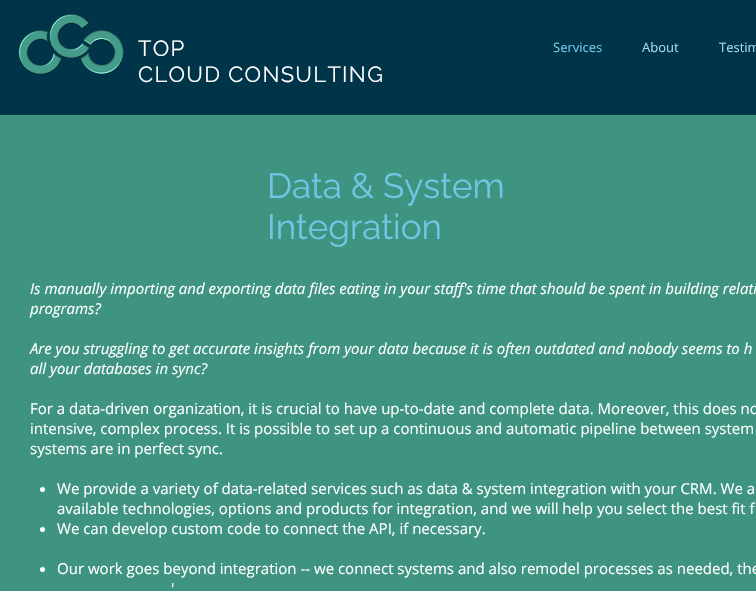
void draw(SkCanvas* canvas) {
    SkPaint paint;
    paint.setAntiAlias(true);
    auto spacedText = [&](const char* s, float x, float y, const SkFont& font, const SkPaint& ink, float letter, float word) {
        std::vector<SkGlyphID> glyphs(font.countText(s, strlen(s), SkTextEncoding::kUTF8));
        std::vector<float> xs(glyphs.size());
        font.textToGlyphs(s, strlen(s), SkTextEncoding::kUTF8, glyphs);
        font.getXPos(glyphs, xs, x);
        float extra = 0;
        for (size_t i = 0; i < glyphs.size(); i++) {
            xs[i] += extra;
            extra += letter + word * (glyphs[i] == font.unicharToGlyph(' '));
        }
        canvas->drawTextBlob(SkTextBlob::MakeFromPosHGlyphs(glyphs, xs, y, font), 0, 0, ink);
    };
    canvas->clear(0xFF3E9481);
    paint.setColor(0xFF003448);
    canvas->drawRect(SkRect::MakeXYWH(0, 0, 756, 115), paint);
    canvas->drawImageRect(SkImages::DeferredFromEncodedData(SkData::MakeFromFileName("img1.png")), SkRect::MakeXYWH(18, 14, 106, 61), SkSamplingOptions());
    SkFont font1(fontMgr->matchFamilyStyle("Raleway", SkFontStyle::Normal()), 22);
    font1.setSubpixel(true);
    paint.setColor(0xFFFFFFFF);
    spacedText("TOP", 138, 56, font1, paint, 1.3f, 0);
    spacedText("CLOUD CONSULTING", 138, 82, font1, paint, 1.3f, 0);
    SkFont font2(fontMgr->matchFamilyStyle("Open Sans", SkFontStyle::Normal()), 13);
    font2.setSubpixel(true);
    paint.setColor(0xFF72C6E5);
    canvas->drawString("Services", 553, 52, font2, paint);
    paint.setColor(0xFFA1DCF2);
    canvas->drawString("About", 642, 52, font2, paint);
    canvas->drawString("Testim", 719, 52, font2, paint);
    SkFont font3(fontMgr->matchFamilyStyle("Raleway", SkFontStyle::Normal()), 35);
    font3.setSubpixel(true);
    paint.setColor(0xFF72C6E5);
    canvas->drawString("Data & System", 267, 198, font3, paint);
    canvas->drawString("Integration", 267, 239, font3, paint);
    SkFont font4(fontMgr->matchFamilyStyle("Open Sans", SkFontStyle::Italic()), 15);
    font4.setSubpixel(true);
    paint.setColor(0xFFFFFFFF);
    canvas->drawString("Is manually importing and exporting data files eating in your staff's time that should be spent in building relati", 30, 294, font4, paint);
    canvas->drawString("programs?", 30, 314, font4, paint);
    canvas->drawString("Are you struggling to get accurate insights from your data because it is often outdated and nobody seems to h", 30, 354, font4, paint);
    canvas->drawString("all your databases in sync?", 30, 374, font4, paint);
    SkFont font5(fontMgr->matchFamilyStyle("Open Sans", SkFontStyle::Normal()), 15);
    font5.setSubpixel(true);
    canvas->drawString("For a data-driven organization, it is crucial to have up-to-date and complete data. Moreover, this does no", 30, 414, font5, paint);
    canvas->drawString("intensive, complex process. It is possible to set up a continuous and automatic pipeline between system", 30, 434, font5, paint);
    canvas->drawString("systems are in perfect sync.", 30, 454, font5, paint);
    canvas->drawCircle(42.5f, 489.5f, 2.5f, paint);
    canvas->drawString("We provide a variety of data-related services such as data & system integration with your CRM. We a", 57, 494, font5, paint);
    canvas->drawString("available technologies, options and products for integration, and we will help you select the best fit f", 57, 514, font5, paint);
    canvas->drawCircle(42.5f, 529.5f, 2.5f, paint);
    canvas->drawString("We can develop custom code to connect the API, if necessary.", 57, 534, font5, paint);
    canvas->drawCircle(42.5f, 569.5f, 2.5f, paint);
    canvas->drawString("Our work goes beyond integration -- we connect systems and also remodel processes as needed, the", 57, 574, font5, paint);
    canvas->drawString("'", 171, 594, font5, paint);
}
